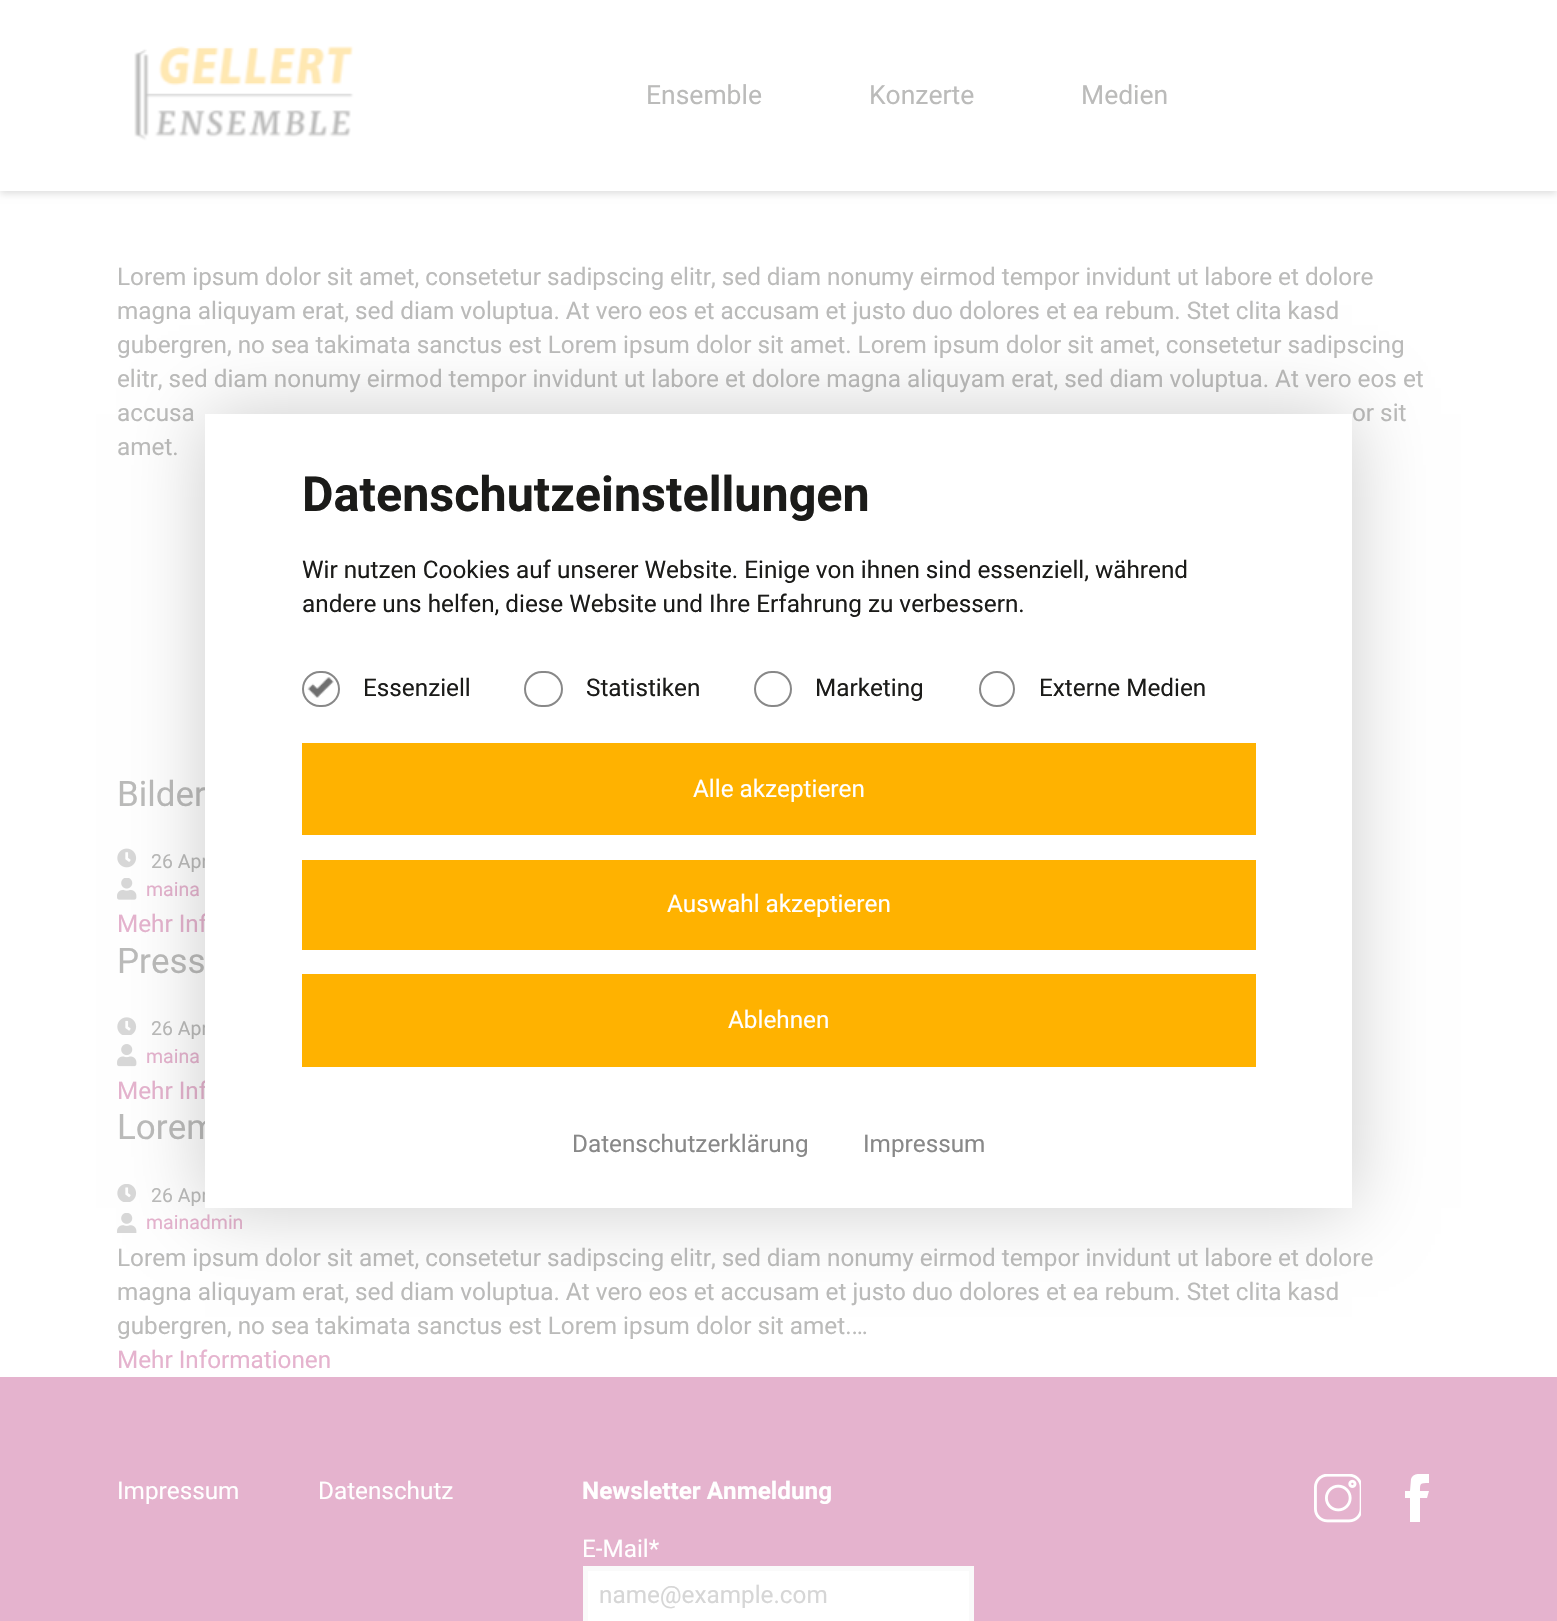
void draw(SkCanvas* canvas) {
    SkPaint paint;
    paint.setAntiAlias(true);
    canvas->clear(0xFFFFFFFF);
    paint.setColor(0xFFE0E0E0);
    paint.setMaskFilter(SkMaskFilter::MakeBlur(kNormal_SkBlurStyle, 3.5f));
    canvas->drawRect(SkRect::MakeXYWH(0, 2, 1557, 192), paint);
    paint.setMaskFilter(nullptr);
    paint.setColor(0xFFFFFFFF);
    canvas->drawRect(SkRect::MakeXYWH(0, 0, 1557, 191), paint);
    canvas->drawImageRect(SkImages::DeferredFromEncodedData(SkData::MakeFromFileName("img1.png")), SkRect::MakeXYWH(134, 46, 220, 95), SkSamplingOptions());
    SkFont font1(fontMgr->matchFamilyStyle("Roboto", SkFontStyle::Normal()), 26.5f);
    font1.setSubpixel(true);
    paint.setColor(0xFFBBBBBA);
    canvas->drawString("Ensemble", 646, 104, font1, paint);
    canvas->drawString("Konzerte", 869, 104, font1, paint);
    canvas->drawString("Medien", 1081, 104, font1, paint);
    SkFont font2(fontMgr->matchFamilyStyle("Roboto", SkFontStyle::Normal()), 24.3f);
    font2.setSubpixel(true);
    canvas->drawString("Lorem ipsum dolor sit amet, consetetur sadipscing elitr, sed diam nonumy eirmod tempor invidunt ut labore et dolore", 117, 285, font2, paint);
    canvas->drawString("magna aliquyam erat, sed diam voluptua. At vero eos et accusam et justo duo dolores et ea rebum. Stet clita kasd", 117, 319, font2, paint);
    canvas->drawString("gubergren, no sea takimata sanctus est Lorem ipsum dolor sit amet. Lorem ipsum dolor sit amet, consetetur sadipscing", 117, 353, font2, paint);
    canvas->drawString("elitr, sed diam nonumy eirmod tempor invidunt ut labore et dolore magna aliquyam erat, sed diam voluptua. At vero eos et", 117, 387, font2, paint);
    canvas->drawString("accusa", 117, 421, font2, paint);
    canvas->drawString("or sit", 1352, 421, font2, paint);
    canvas->drawString("amet.", 117, 455, font2, paint);
    SkFont font3(fontMgr->matchFamilyStyle("Roboto", SkFontStyle::Normal()), 35);
    font3.setSubpixel(true);
    canvas->drawString("Bilder", 117, 806, font3, paint);
    canvas->drawImageRect(SkImages::DeferredFromEncodedData(SkData::MakeFromFileName("img2.png")), SkRect::MakeXYWH(117, 848, 20, 20), SkSamplingOptions());
    SkFont font4(fontMgr->matchFamilyStyle("Roboto", SkFontStyle::Normal()), 19.5f);
    font4.setSubpixel(true);
    canvas->drawString("26 Apr", 151, 868, font4, paint);
    canvas->drawImageRect(SkImages::DeferredFromEncodedData(SkData::MakeFromFileName("img3.png")), SkRect::MakeXYWH(117, 878, 20, 22), SkSamplingOptions());
    paint.setColor(0xFFE5B3CE);
    canvas->drawString("maina", 146, 896, font4, paint);
    canvas->drawString("Mehr Inf", 117, 932, font2, paint);
    paint.setColor(0xFFBBBBBA);
    canvas->drawString("Press", 117, 973, font3, paint);
    canvas->drawImageRect(SkImages::DeferredFromEncodedData(SkData::MakeFromFileName("img4.png")), SkRect::MakeXYWH(117, 1017, 20, 18), SkSamplingOptions());
    canvas->drawString("26 Apr", 151, 1035, font4, paint);
    canvas->drawImageRect(SkImages::DeferredFromEncodedData(SkData::MakeFromFileName("img5.png")), SkRect::MakeXYWH(117, 1044, 20, 23), SkSamplingOptions());
    paint.setColor(0xFFE5B3CE);
    canvas->drawString("maina", 146, 1063, font4, paint);
    canvas->drawString("Mehr Inf", 117, 1099, font2, paint);
    paint.setColor(0xFFBBBBBA);
    canvas->drawString("Lorem", 117, 1139, font3, paint);
    canvas->drawImageRect(SkImages::DeferredFromEncodedData(SkData::MakeFromFileName("img6.png")), SkRect::MakeXYWH(117, 1184, 20, 18), SkSamplingOptions());
    canvas->drawString("26 Apr", 151, 1202, font4, paint);
    canvas->drawImageRect(SkImages::DeferredFromEncodedData(SkData::MakeFromFileName("img7.png")), SkRect::MakeXYWH(117, 1213, 20, 20), SkSamplingOptions());
    paint.setColor(0xFFE5B3CE);
    canvas->drawString("mainadmin", 146, 1229, font4, paint);
    paint.setColor(0xFFBBBBBA);
    canvas->drawString("Lorem ipsum dolor sit amet, consetetur sadipscing elitr, sed diam nonumy eirmod tempor invidunt ut labore et dolore", 117, 1266, font2, paint);
    canvas->drawString("magna aliquyam erat, sed diam voluptua. At vero eos et accusam et justo duo dolores et ea rebum. Stet clita kasd", 117, 1300, font2, paint);
    canvas->drawString("gubergren, no sea takimata sanctus est Lorem ipsum dolor sit amet.…", 117, 1334, font2, paint);
    paint.setColor(0xFFE5B3CE);
    canvas->drawString("Mehr Informationen", 117, 1368, font2, paint);
    canvas->drawRect(SkRect::MakeXYWH(0, 1377, 1557, 244), paint);
    paint.setColor(0xFFFFFFFF);
    canvas->drawString("Impressum", 117, 1499, font2, paint);
    canvas->drawString("Datenschutz", 318, 1499, font2, paint);
    SkFont font5(fontMgr->matchFamilyStyle("Roboto", SkFontStyle::Bold()), 24.3f);
    font5.setSubpixel(true);
    canvas->drawString("Newsletter Anmeldung", 582, 1499, font5, paint);
    canvas->drawString("E-Mail*", 582, 1557, font2, paint);
    canvas->drawRect(SkRect::MakeXYWH(585.5f, 1568.5f, 386, 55), paint);
    paint.setStyle(SkPaint::kStroke_Style);
    paint.setStrokeWidth(5);
    paint.setColor(0xFFFAFAFA);
    canvas->drawRect(SkRect::MakeXYWH(585.5f, 1568.5f, 386, 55), paint);
    paint.setStyle(SkPaint::kFill_Style);
    paint.setColor(0xFFD6D6D6);
    canvas->drawString("name@example.com", 599, 1603, font2, paint);
    canvas->drawImageRect(SkImages::DeferredFromEncodedData(SkData::MakeFromFileName("img8.png")), SkRect::MakeXYWH(1314, 1474, 47, 49), SkSamplingOptions());
    canvas->save();
    canvas->clipRect(SkRect::MakeXYWH(1393, 1474, 47, 49));
    paint.setColor(0xFFFFFFFF);
    canvas->drawPath(SkPathBuilder().moveTo(1429, 1491).lineTo(1420, 1491).cubicTo(1420, 1483, 1420, 1483, 1429, 1483).lineTo(1429, 1474).cubicTo(1423, 1474, 1413, 1472, 1411, 1479).lineTo(1410, 1491).lineTo(1405, 1491).lineTo(1405, 1498).lineTo(1410, 1498).lineTo(1410, 1522).lineTo(1420, 1522).lineTo(1420, 1498).lineTo(1427, 1498).close().detach(), paint);
    canvas->restore();
    paint.setColor(0x33000000);
    paint.setMaskFilter(SkMaskFilter::MakeBlur(kNormal_SkBlurStyle, 36.5f));
    canvas->drawRect(SkRect::MakeXYWH(205, 414, 1147, 794), paint);
    paint.setMaskFilter(nullptr);
    paint.setColor(0xFFFFFFFF);
    canvas->drawRect(SkRect::MakeXYWH(205, 414, 1147, 794), paint);
    SkFont font6(fontMgr->matchFamilyStyle("Roboto", SkFontStyle::Bold()), 48.5f);
    font6.setSubpixel(true);
    paint.setColor(0xFF1B1B19);
    canvas->drawString("Datenschutzeinstellungen", 302, 511, font6, paint);
    canvas->drawString("Wir nutzen Cookies auf unserer Website. Einige von ihnen sind essenziell, während", 302, 578, font2, paint);
    canvas->drawString("andere uns helfen, diese Website und Ihre Erfahrung zu verbessern.", 302, 612, font2, paint);
    paint.setStyle(SkPaint::kStroke_Style);
    paint.setStrokeWidth(2);
    paint.setColor(0xFF888888);
    canvas->drawRoundRect(SkRect::MakeXYWH(303, 672, 36, 34), 17, 17, paint);
    canvas->drawImageRect(SkImages::DeferredFromEncodedData(SkData::MakeFromFileName("img9.png")), SkRect::MakeXYWH(307, 677, 27, 21), SkSamplingOptions());
    paint.setStyle(SkPaint::kFill_Style);
    paint.setColor(0xFF1B1B19);
    canvas->drawString("Essenziell", 363, 696, font2, paint);
    paint.setStyle(SkPaint::kStroke_Style);
    paint.setColor(0xFF888888);
    canvas->drawRoundRect(SkRect::MakeXYWH(525, 672, 37, 34), 17, 17, paint);
    paint.setStyle(SkPaint::kFill_Style);
    paint.setColor(0xFF1B1B19);
    canvas->drawString("Statistiken", 586, 696, font2, paint);
    paint.setStyle(SkPaint::kStroke_Style);
    paint.setColor(0xFF888888);
    canvas->drawRoundRect(SkRect::MakeXYWH(755, 672, 36, 34), 17, 17, paint);
    paint.setStyle(SkPaint::kFill_Style);
    paint.setColor(0xFF1B1B19);
    canvas->drawString("Marketing", 815, 696, font2, paint);
    paint.setStyle(SkPaint::kStroke_Style);
    paint.setColor(0xFF888888);
    canvas->drawCircle(997, 689, 17, paint);
    paint.setStyle(SkPaint::kFill_Style);
    paint.setColor(0xFF1B1B19);
    canvas->drawString("Externe Medien", 1039, 696, font2, paint);
    paint.setColor(0xFFFFB200);
    canvas->drawRect(SkRect::MakeXYWH(302, 743, 954, 92), paint);
    paint.setColor(0xFFFFFFFF);
    canvas->drawString("Alle akzeptieren", 693, 797, font2, paint);
    paint.setColor(0xFFFFB200);
    canvas->drawRect(SkRect::MakeXYWH(302, 860, 954, 90), paint);
    paint.setColor(0xFFFFFFFF);
    canvas->drawString("Auswahl akzeptieren", 667, 912, font2, paint);
    paint.setColor(0xFFFFB200);
    canvas->drawRect(SkRect::MakeXYWH(302, 974, 954, 93), paint);
    paint.setColor(0xFFFFFFFF);
    canvas->drawString("Ablehnen", 728, 1028, font2, paint);
    paint.setColor(0xFF888888);
    canvas->drawString("Datenschutzerklärung", 572, 1152, font2, paint);
    canvas->drawString("Impressum", 863, 1152, font2, paint);
}
